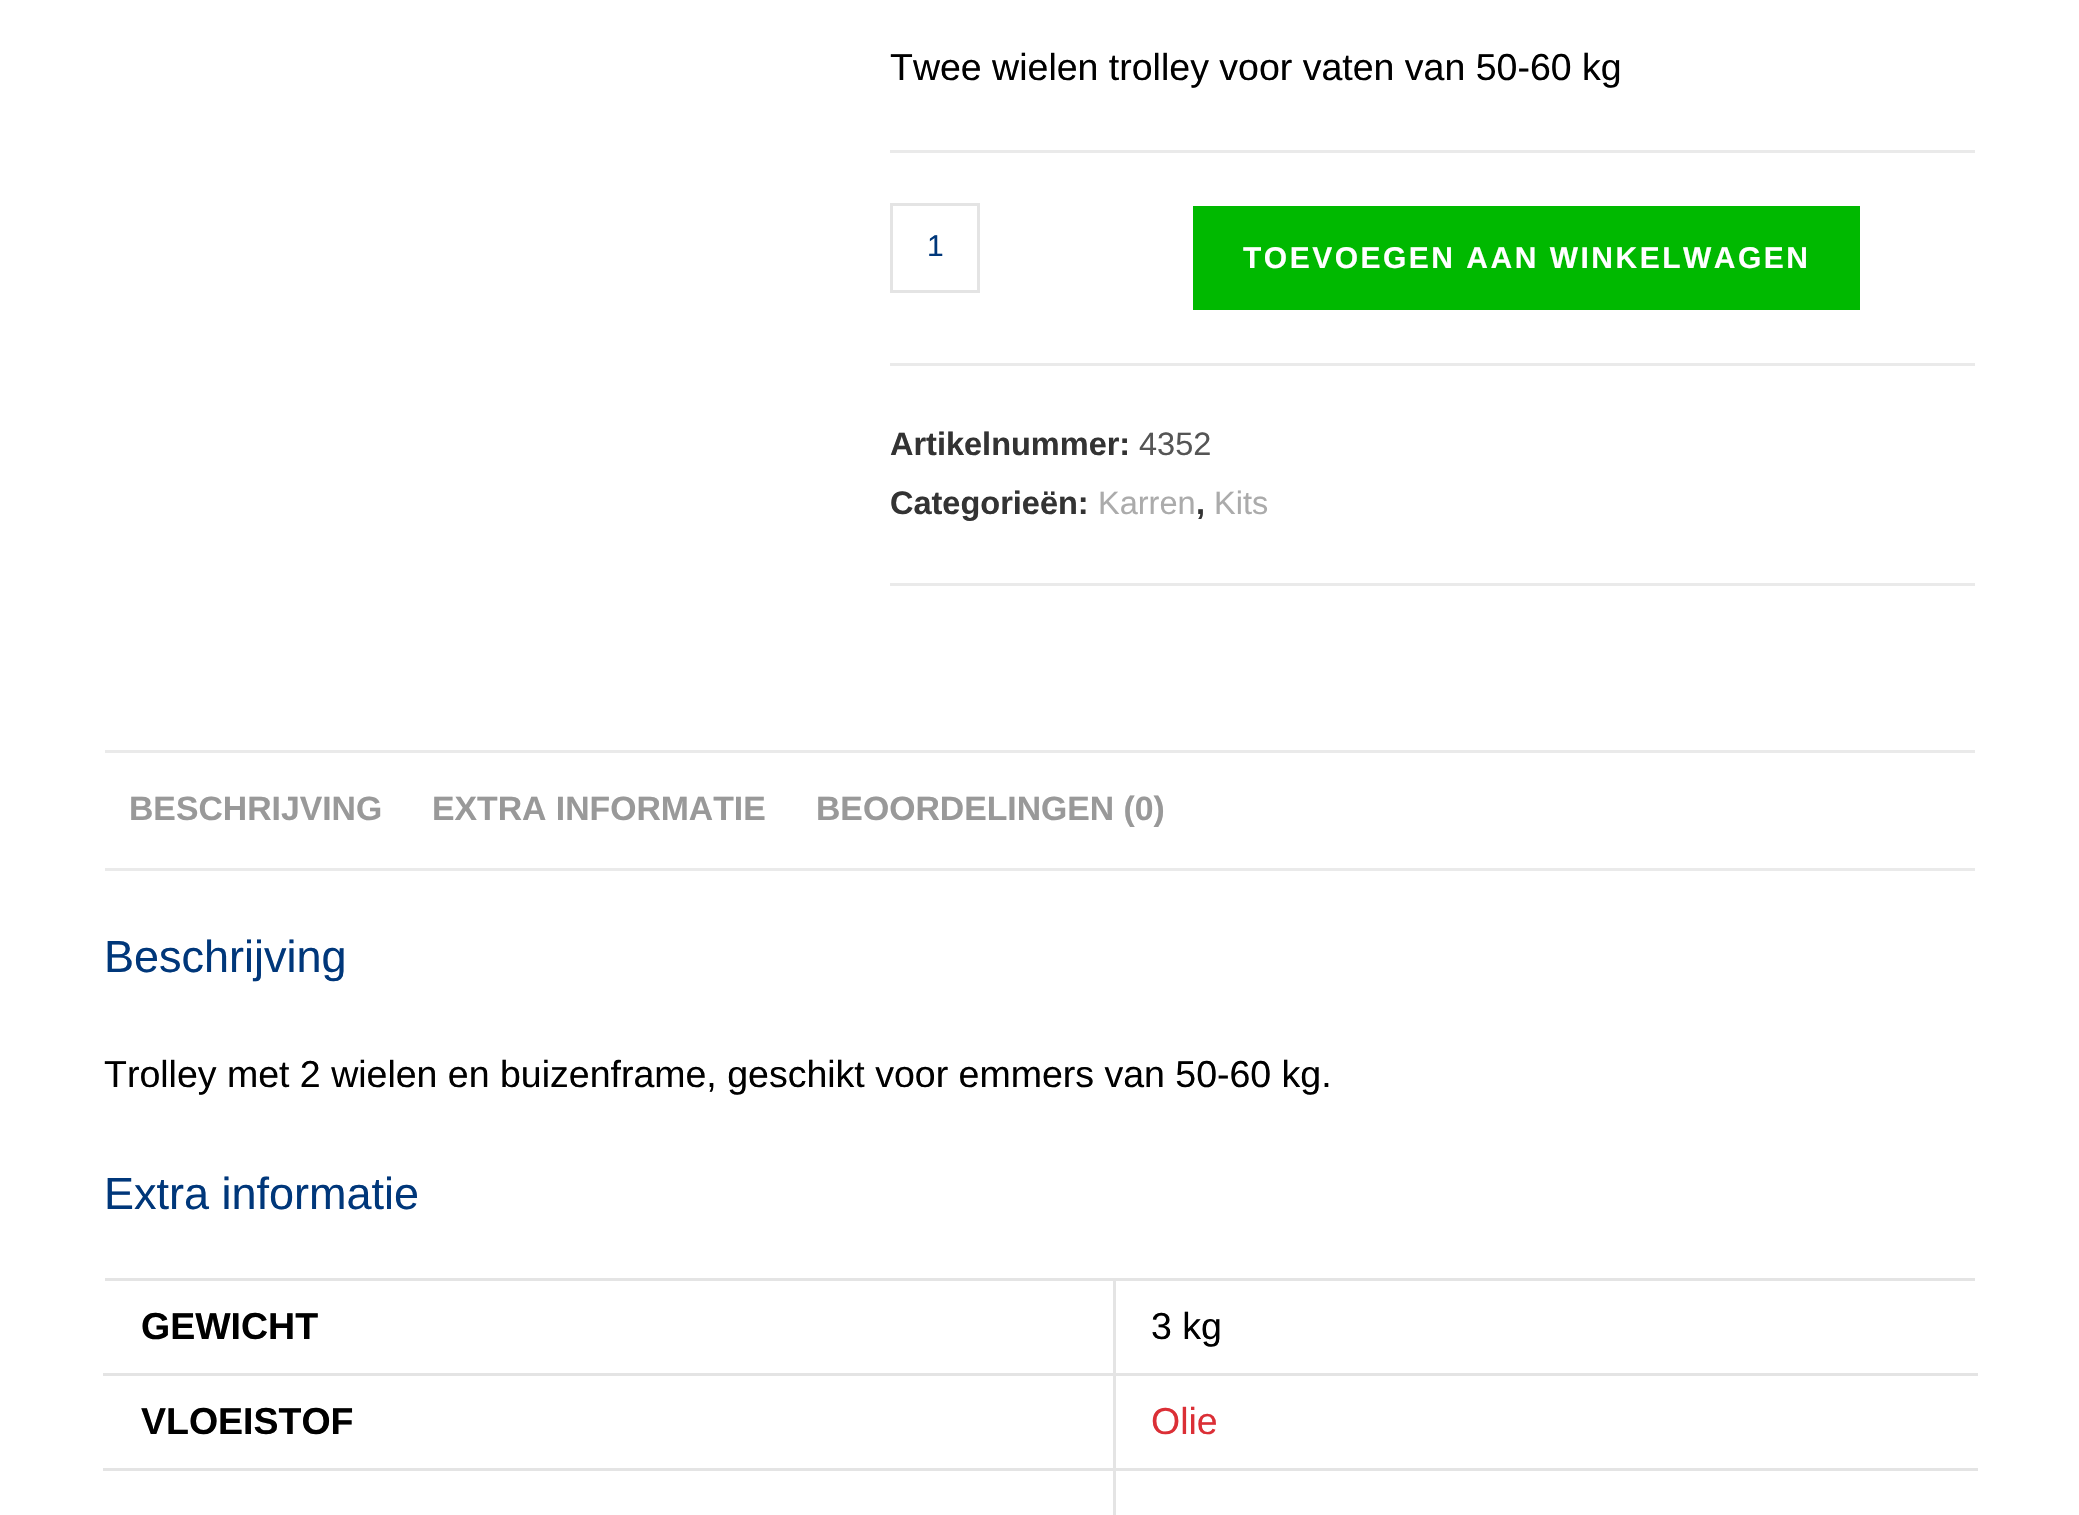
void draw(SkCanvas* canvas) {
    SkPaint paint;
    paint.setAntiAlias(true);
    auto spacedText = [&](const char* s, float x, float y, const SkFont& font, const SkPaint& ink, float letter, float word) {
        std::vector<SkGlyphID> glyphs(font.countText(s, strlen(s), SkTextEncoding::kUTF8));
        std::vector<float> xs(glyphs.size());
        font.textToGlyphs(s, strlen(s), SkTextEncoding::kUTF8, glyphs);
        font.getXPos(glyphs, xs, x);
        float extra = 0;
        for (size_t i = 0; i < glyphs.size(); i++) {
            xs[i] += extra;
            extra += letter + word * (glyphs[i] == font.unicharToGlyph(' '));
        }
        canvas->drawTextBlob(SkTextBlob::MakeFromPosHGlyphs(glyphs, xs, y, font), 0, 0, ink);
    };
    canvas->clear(0xFFFFFFFF);
    SkFont font1(fontMgr->matchFamilyStyle("Liberation Sans", SkFontStyle::Normal()), 37.5f);
    font1.setSubpixel(true);
    paint.setColor(0xFF000000);
    canvas->drawString("Twee wielen trolley voor vaten van 50-60 kg", 890, 80, font1, paint);
    paint.setColor(0xFFEAEAEA);
    canvas->drawRect(SkRect::MakeXYWH(890, 150, 1085, 3), paint);
    canvas->drawRect(SkRect::MakeXYWH(890, 363, 1085, 3), paint);
    paint.setStyle(SkPaint::kStroke_Style);
    paint.setStrokeWidth(3);
    paint.setColor(0xFFE4E4E4);
    canvas->drawRect(SkRect::MakeXYWH(891.5f, 204.5f, 87, 87), paint);
    SkFont font2(fontMgr->matchFamilyStyle("Liberation Sans", SkFontStyle::Normal()), 30);
    font2.setSubpixel(true);
    paint.setStyle(SkPaint::kFill_Style);
    paint.setColor(0xFF00377A);
    canvas->drawString("1", 927, 256, font2, paint);
    paint.setColor(0xFF00B900);
    canvas->drawRect(SkRect::MakeXYWH(1193, 206, 667, 104), paint);
    SkFont font3(fontMgr->matchFamilyStyle("Liberation Sans", SkFontStyle::Bold()), 30);
    font3.setSubpixel(true);
    paint.setColor(0xFFFFFFFF);
    spacedText("TOEVOEGEN AAN WINKELWAGEN", 1243, 268, font3, paint, 2.5f, 0);
    paint.setColor(0xFFEAEAEA);
    canvas->drawRect(SkRect::MakeXYWH(890, 583, 1085, 3), paint);
    SkFont font4(fontMgr->matchFamilyStyle("Liberation Sans", SkFontStyle::Bold()), 32.5f);
    font4.setSubpixel(true);
    paint.setColor(0xFF333333);
    canvas->drawString("Artikelnummer:", 890, 455, font4, paint);
    SkFont font5(fontMgr->matchFamilyStyle("Liberation Sans", SkFontStyle::Normal()), 32.5f);
    font5.setSubpixel(true);
    paint.setColor(0xFF555555);
    canvas->drawString("4352", 1139, 455, font5, paint);
    paint.setColor(0xFF333333);
    canvas->drawString("Categorieën:", 890, 514, font4, paint);
    paint.setColor(0xFFABABAB);
    canvas->drawString("Karren", 1098, 514, font5, paint);
    paint.setColor(0xFF333333);
    canvas->drawString(",", 1196, 514, font4, paint);
    paint.setColor(0xFFABABAB);
    canvas->drawString("Kits", 1214, 514, font5, paint);
    paint.setColor(0xFFEAEAEA);
    canvas->drawRect(SkRect::MakeXYWH(105, 750, 1870, 3), paint);
    canvas->drawRect(SkRect::MakeXYWH(105, 868, 1870, 3), paint);
    SkFont font6(fontMgr->matchFamilyStyle("Liberation Sans", SkFontStyle::Bold()), 33.75f);
    font6.setSubpixel(true);
    paint.setColor(0xFF999999);
    canvas->drawString("BESCHRIJVING", 129, 820, font6, paint);
    canvas->drawString("EXTRA INFORMATIE", 432, 820, font6, paint);
    canvas->drawString("BEOORDELINGEN (0)", 816, 820, font6, paint);
    SkFont font7(fontMgr->matchFamilyStyle("Liberation Sans", SkFontStyle::Normal()), 45);
    font7.setSubpixel(true);
    paint.setColor(0xFF00377A);
    canvas->drawString("Beschrijving", 104, 972, font7, paint);
    paint.setColor(0xFF000000);
    canvas->drawString("Trolley met 2 wielen en buizenframe, geschikt voor emmers van 50-60 kg.", 104, 1087, font1, paint);
    paint.setColor(0xFF00377A);
    canvas->drawString("Extra informatie", 104, 1209, font7, paint);
    paint.setColor(0xFFE4E4E4);
    canvas->drawRect(SkRect::MakeXYWH(105, 1278, 1870, 3), paint);
    canvas->drawRect(SkRect::MakeXYWH(1113, 1468, 3, 47), paint);
    canvas->drawRect(SkRect::MakeXYWH(1113, 1468, 865, 3), paint);
    canvas->drawRect(SkRect::MakeXYWH(1113, 1373, 3, 97), paint);
    canvas->drawRect(SkRect::MakeXYWH(1113, 1373, 865, 3), paint);
    canvas->drawRect(SkRect::MakeXYWH(1113, 1278, 3, 97), paint);
    canvas->drawRect(SkRect::MakeXYWH(103, 1373, 1012, 3), paint);
    SkFont font8(fontMgr->matchFamilyStyle("Liberation Sans", SkFontStyle::Bold()), 37.5f);
    font8.setSubpixel(true);
    paint.setColor(0xFF000000);
    canvas->drawString("GEWICHT", 141, 1339, font8, paint);
    canvas->drawString("3 kg", 1151, 1339, font1, paint);
    paint.setColor(0xFFE4E4E4);
    canvas->drawRect(SkRect::MakeXYWH(103, 1468, 1012, 3), paint);
    paint.setColor(0xFF000000);
    canvas->drawString("VLOEISTOF", 141, 1434, font8, paint);
    paint.setColor(0xFFDB2F36);
    canvas->drawString("Olie", 1151, 1434, font1, paint);
}
